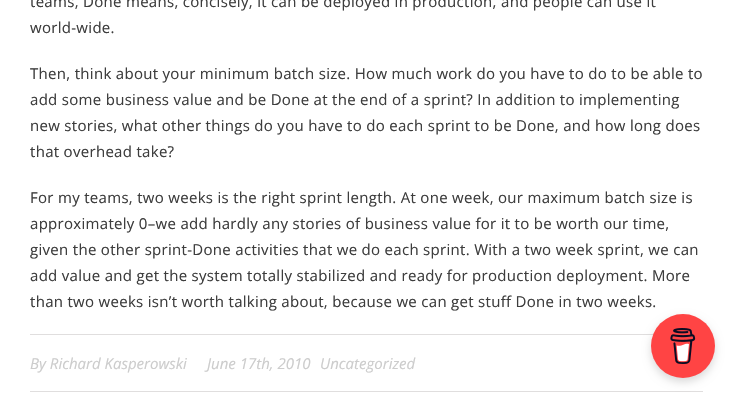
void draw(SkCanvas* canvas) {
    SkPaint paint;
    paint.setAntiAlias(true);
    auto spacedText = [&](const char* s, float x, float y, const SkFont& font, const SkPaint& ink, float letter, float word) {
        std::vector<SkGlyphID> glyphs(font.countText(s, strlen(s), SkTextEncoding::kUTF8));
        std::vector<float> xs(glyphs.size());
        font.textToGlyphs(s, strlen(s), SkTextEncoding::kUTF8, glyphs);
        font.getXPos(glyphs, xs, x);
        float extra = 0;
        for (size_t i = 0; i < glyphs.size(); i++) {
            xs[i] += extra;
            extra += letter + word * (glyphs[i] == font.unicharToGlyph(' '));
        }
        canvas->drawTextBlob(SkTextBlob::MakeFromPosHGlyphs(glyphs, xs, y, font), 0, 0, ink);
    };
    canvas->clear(0xFFFFFFFF);
    SkFont font1(fontMgr->matchFamilyStyle("Open Sans", SkFontStyle::Normal()), 15);
    font1.setSubpixel(true);
    paint.setColor(0xFF3D3D3D);
    spacedText("teams, Done means, concisely, it can be deployed in production, and people can use it", 30, 7, font1, paint, 0.3f, 0);
    spacedText("world-wide.", 30, 33, font1, paint, 0.3f, 0);
    spacedText("Then, think about your minimum batch size. How much work do you have to do to be able to", 30, 79, font1, paint, 0.3f, 0);
    spacedText("add some business value and be Done at the end of a sprint? In addition to implementing", 30, 105, font1, paint, 0.3f, 0);
    spacedText("new stories, what other things do you have to do each sprint to be Done, and how long does", 30, 131, font1, paint, 0.3f, 0);
    spacedText("that overhead take?", 30, 157, font1, paint, 0.3f, 0);
    spacedText("For my teams, two weeks is the right sprint length. At one week, our maximum batch size is", 30, 203, font1, paint, 0.3f, 0);
    spacedText("approximately 0–we add hardly any stories of business value for it to be worth our time,", 30, 229, font1, paint, 0.3f, 0);
    spacedText("given the other sprint-Done activities that we do each sprint. With a two week sprint, we can", 30, 255, font1, paint, 0.3f, 0);
    spacedText("add value and get the system totally stabilized and ready for production deployment. More", 30, 281, font1, paint, 0.3f, 0);
    spacedText("than two weeks isn’t worth talking about, because we can get stuff Done in two weeks.", 30, 307, font1, paint, 0.3f, 0);
    paint.setColor(0xFFE0DEDE);
    canvas->drawRect(SkRect::MakeXYWH(30, 334, 624, 1), paint);
    canvas->drawRect(SkRect::MakeXYWH(30, 391, 673, 1), paint);
    SkFont font2(fontMgr->matchFamilyStyle("Open Sans", SkFontStyle::Italic()), 15);
    font2.setSubpixel(true);
    paint.setColor(0xFFCCCCCC);
    canvas->drawString("By Richard Kasperowski", 30, 369, font2, paint);
    canvas->drawString("June 17th, 2010", 207, 369, font2, paint);
    canvas->drawString("Uncategorized", 320, 369, font2, paint);
    paint.setColor(0x26000000);
    paint.setMaskFilter(SkMaskFilter::MakeBlur(kNormal_SkBlurStyle, 4));
    canvas->drawRoundRect(SkRect::MakeXYWH(651, 318, 64, 64), 32, 32, paint);
    paint.setMaskFilter(nullptr);
    paint.setColor(0xFFFF4444);
    canvas->drawCircle(683, 346, 32, paint);
    canvas->drawImageRect(SkImages::DeferredFromEncodedData(SkData::MakeFromFileName("img1.png")), SkRect::MakeXYWH(670, 328, 26, 36), SkSamplingOptions());
}
